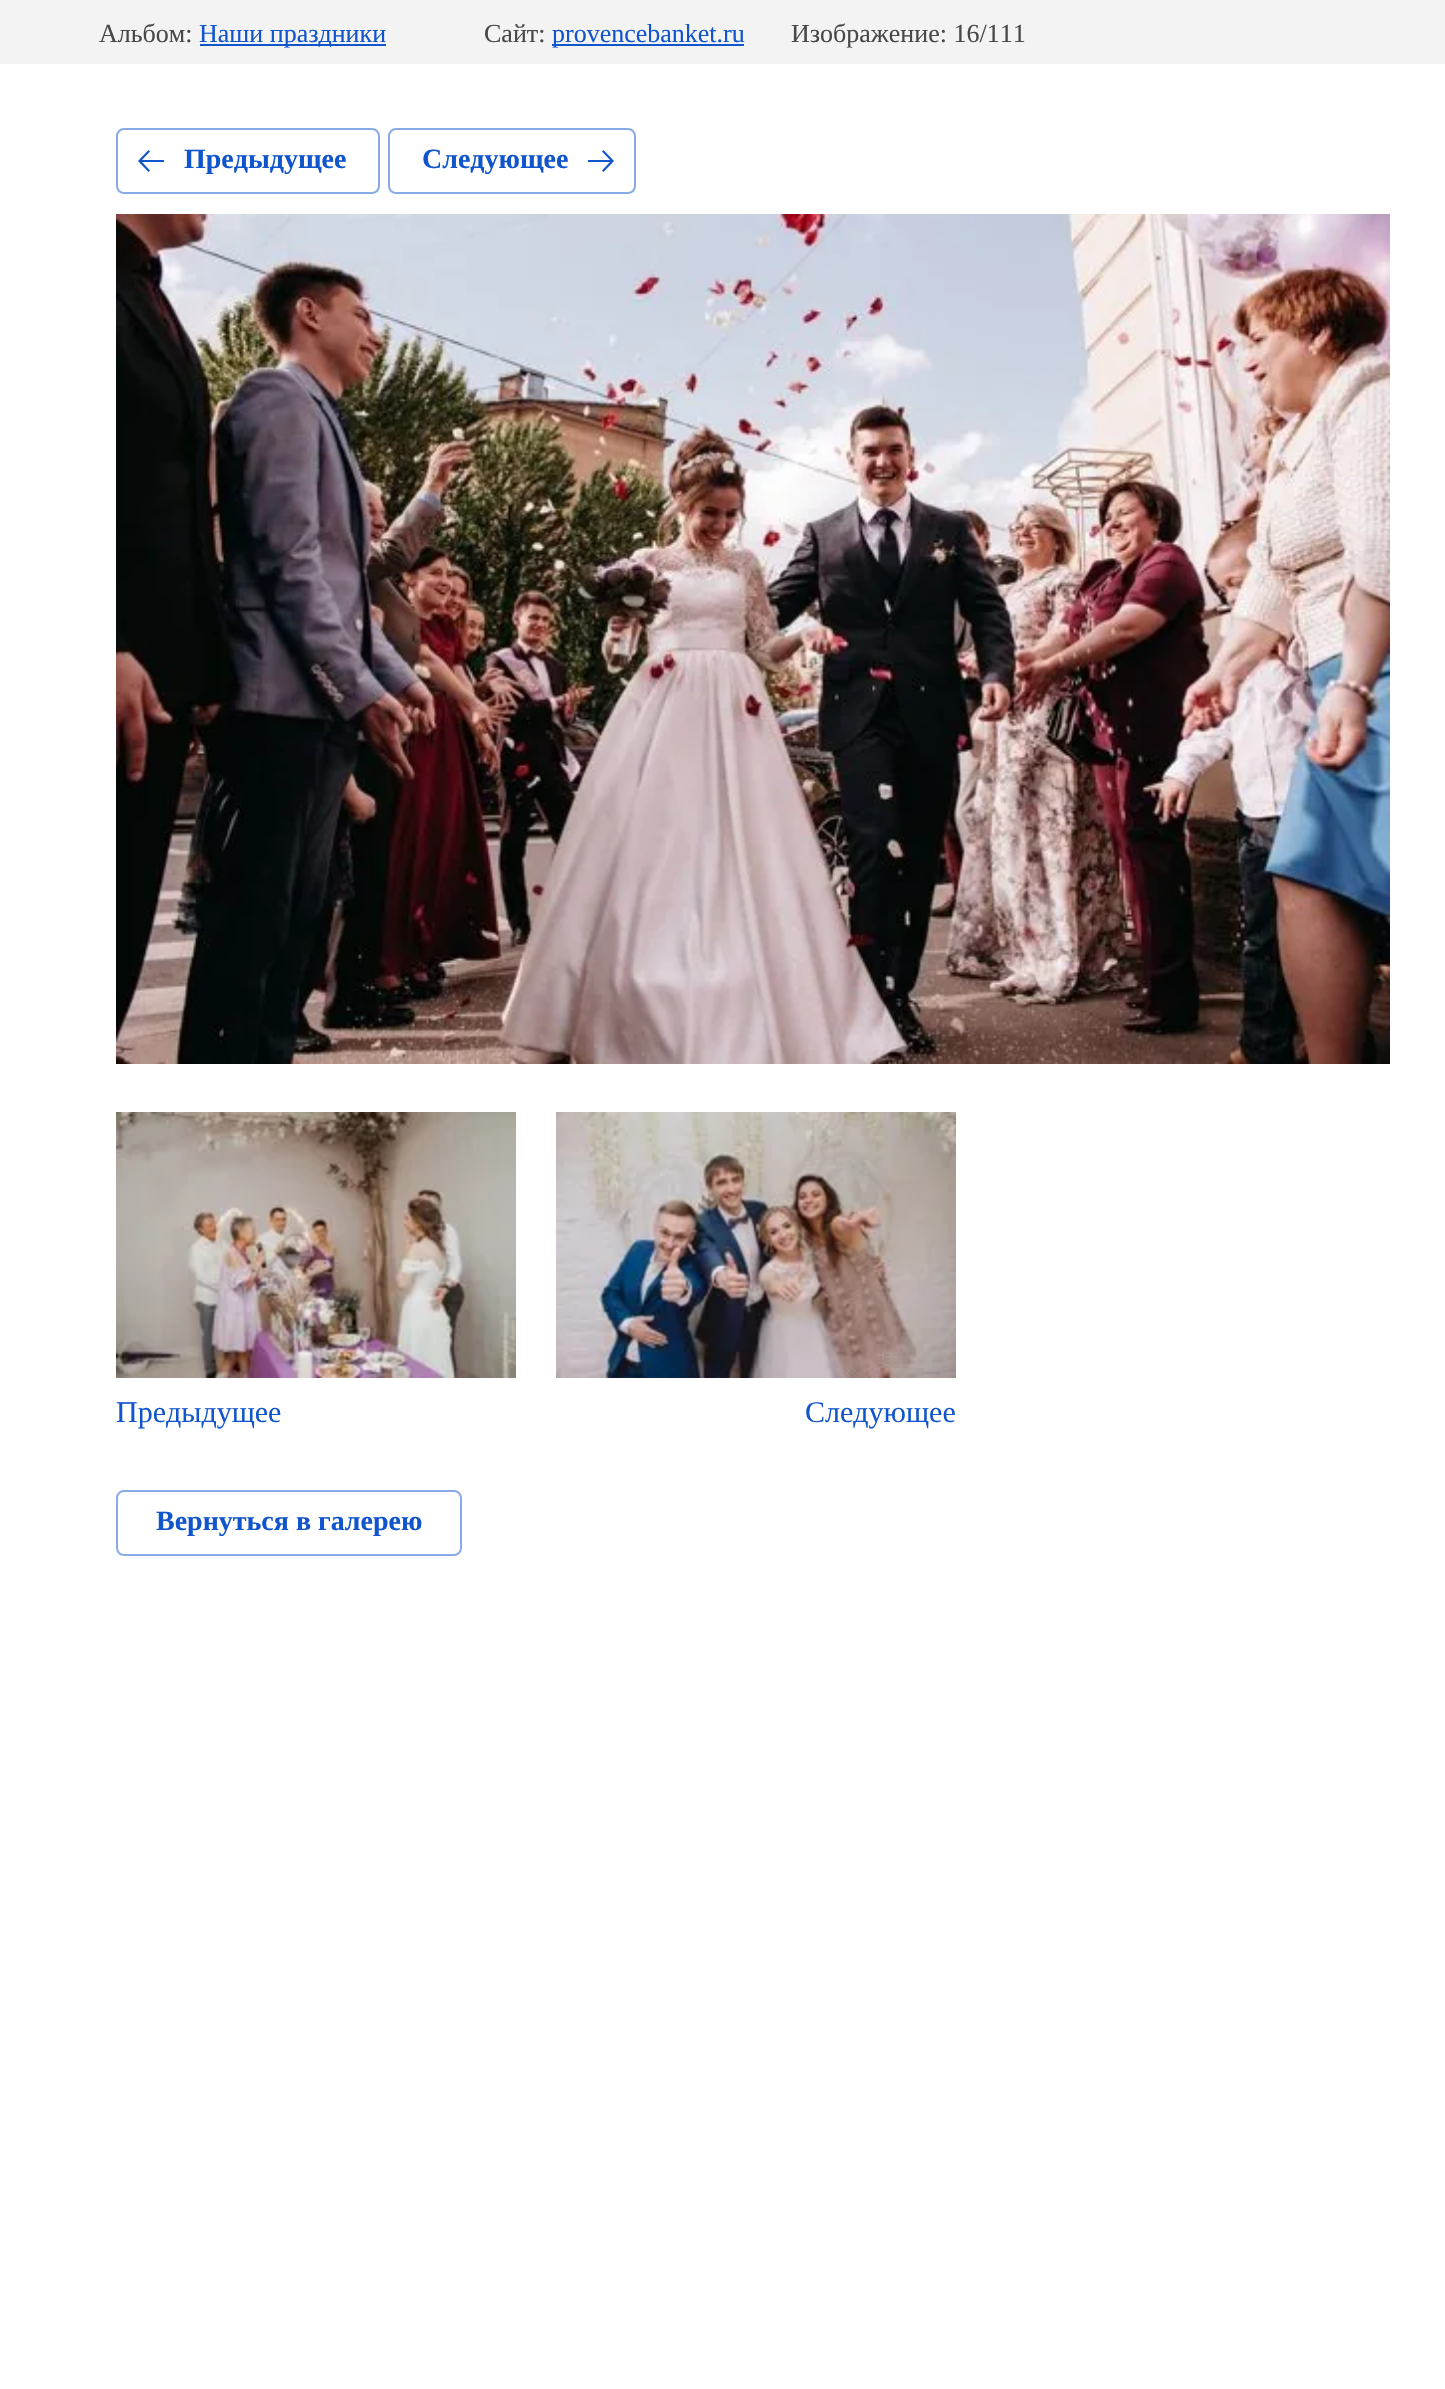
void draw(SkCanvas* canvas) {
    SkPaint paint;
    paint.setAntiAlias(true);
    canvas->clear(0xFFFFFFFF);
    paint.setColor(0xFFF3F3F3);
    canvas->drawRect(SkRect::MakeXYWH(0, 0, 1445, 64), paint);
    SkFont font1(fontMgr->matchFamilyStyle("Liberation Serif", SkFontStyle::Normal()), 26);
    font1.setSubpixel(true);
    paint.setColor(0xFF484848);
    canvas->drawString("Альбом:", 99, 42, font1, paint);
    paint.setColor(0xFF1155CC);
    canvas->drawRect(SkRect::MakeXYWH(200, 44, 186, 2), paint);
    canvas->drawString("Наши праздники", 199, 42, font1, paint);
    paint.setColor(0xFF484848);
    canvas->drawString("Сайт:", 484, 42, font1, paint);
    paint.setColor(0xFF1155CC);
    canvas->drawRect(SkRect::MakeXYWH(552, 44, 192, 2), paint);
    canvas->drawString("provencebanket.ru", 552, 42, font1, paint);
    paint.setColor(0xFF484848);
    canvas->drawString("Изображение: 16/111", 791, 42, font1, paint);
    paint.setStyle(SkPaint::kStroke_Style);
    paint.setStrokeWidth(2);
    paint.setColor(0xFF88AAE6);
    canvas->drawRoundRect(SkRect::MakeXYWH(117, 129, 262, 64), 7, 7, paint);
    paint.setStyle(SkPaint::kFill_Style);
    paint.setColor(0xFF1155CC);
    canvas->drawPath(SkPathBuilder().moveTo(150, 151.5f).lineTo(148.5f, 150).lineTo(138, 161).lineTo(148.5f, 172).lineTo(150, 170.5f).lineTo(142, 162).lineTo(164, 162).lineTo(164, 160).lineTo(142, 160).close().detach(), paint);
    SkFont font2(fontMgr->matchFamilyStyle("Liberation Serif", SkFontStyle::Bold()), 28);
    font2.setSubpixel(true);
    canvas->drawString("Предыдущее", 184, 168, font2, paint);
    paint.setStyle(SkPaint::kStroke_Style);
    paint.setColor(0xFF88AAE6);
    canvas->drawRoundRect(SkRect::MakeXYWH(389, 129, 246, 64), 7, 7, paint);
    paint.setStyle(SkPaint::kFill_Style);
    paint.setColor(0xFF1155CC);
    canvas->drawString("Следующее", 422, 168, font2, paint);
    canvas->drawPath(SkPathBuilder().moveTo(602, 151.5f).lineTo(603.5f, 150).lineTo(614, 161).lineTo(603.5f, 172).lineTo(602, 170.5f).lineTo(610, 162).lineTo(588, 162).lineTo(588, 160).lineTo(610, 160).close().detach(), paint);
    canvas->drawImageRect(SkImages::DeferredFromEncodedData(SkData::MakeFromFileName("img1.png")), SkRect::MakeXYWH(116, 214, 1274, 850), SkSamplingOptions());
    canvas->drawImageRect(SkImages::DeferredFromEncodedData(SkData::MakeFromFileName("img2.png")), SkRect::MakeXYWH(116, 1112, 400, 266), SkSamplingOptions());
    SkFont font3(fontMgr->matchFamilyStyle("Liberation Serif", SkFontStyle::Normal()), 30);
    font3.setSubpixel(true);
    canvas->drawString("Предыдущее", 116, 1422, font3, paint);
    canvas->drawImageRect(SkImages::DeferredFromEncodedData(SkData::MakeFromFileName("img3.png")), SkRect::MakeXYWH(556, 1112, 400, 266), SkSamplingOptions());
    canvas->drawString("Следующее", 805, 1422, font3, paint);
    paint.setStyle(SkPaint::kStroke_Style);
    paint.setColor(0xFF88AAE6);
    canvas->drawRoundRect(SkRect::MakeXYWH(117, 1491, 344, 64), 7, 7, paint);
    paint.setStyle(SkPaint::kFill_Style);
    paint.setColor(0xFF1155CC);
    canvas->drawString("Вернуться в галерею", 156, 1530, font2, paint);
}
